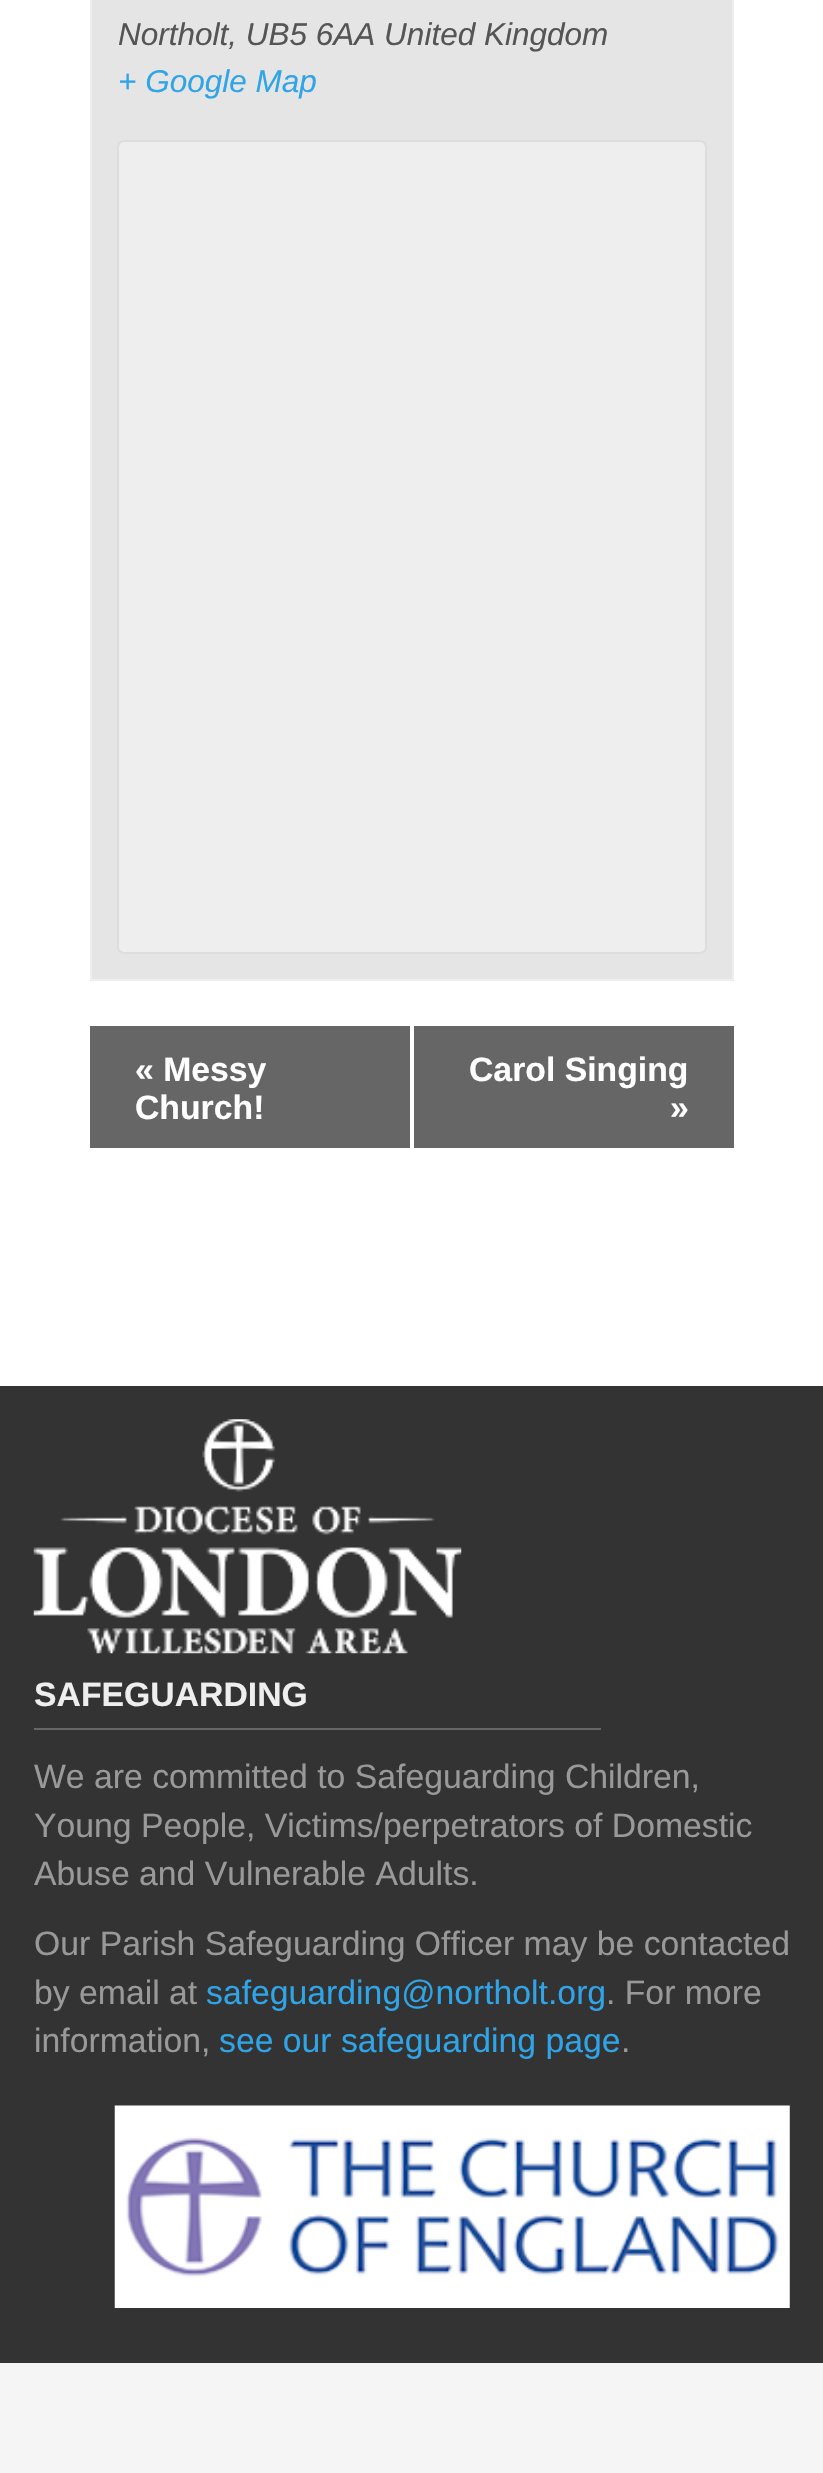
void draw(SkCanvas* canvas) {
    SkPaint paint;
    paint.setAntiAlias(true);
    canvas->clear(0xFFFFFFFF);
    paint.setColor(0xFFE5E5E5);
    canvas->drawRect(SkRect::MakeXYWH(91, -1, 642, 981), paint);
    paint.setStyle(SkPaint::kStroke_Style);
    paint.setStrokeWidth(2);
    paint.setColor(0xFFEEEEEE);
    canvas->drawRect(SkRect::MakeXYWH(91, -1, 642, 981), paint);
    SkFont font1(fontMgr->matchFamilyStyle("Liberation Sans", SkFontStyle::Italic()), 31.5f);
    font1.setSubpixel(true);
    paint.setStyle(SkPaint::kFill_Style);
    paint.setColor(0xFF555555);
    canvas->drawString("Northolt, UB5 6AA United Kingdom", 118, 45, font1, paint);
    paint.setColor(0xFF2FA4E7);
    canvas->drawString("+ Google Map", 118, 92, font1, paint);
    paint.setColor(0xFFEEEEEE);
    canvas->drawRoundRect(SkRect::MakeXYWH(118, 141, 588, 812), 6, 6, paint);
    paint.setStyle(SkPaint::kStroke_Style);
    paint.setColor(0xFFDDDDDD);
    canvas->drawRoundRect(SkRect::MakeXYWH(118, 141, 588, 812), 6, 6, paint);
    paint.setStyle(SkPaint::kFill_Style);
    paint.setColor(0xFF666666);
    canvas->drawRect(SkRect::MakeXYWH(90, 1026, 320, 122), paint);
    SkFont font2(fontMgr->matchFamilyStyle("Liberation Sans", SkFontStyle::Bold()), 33.75f);
    font2.setSubpixel(true);
    paint.setColor(0xFFFFFFFF);
    canvas->drawString("« Messy", 135, 1081, font2, paint);
    canvas->drawString("Church!", 135, 1119, font2, paint);
    paint.setColor(0xFF666666);
    canvas->drawRect(SkRect::MakeXYWH(414, 1026, 320, 122), paint);
    paint.setColor(0xFFFFFFFF);
    canvas->drawString("Carol Singing", 469, 1081, font2, paint);
    canvas->drawString("»", 670, 1119, font2, paint);
    paint.setColor(0xFF333333);
    canvas->drawRect(SkRect::MakeXYWH(0, 1386, 823, 977), paint);
    canvas->drawImageRect(SkImages::DeferredFromEncodedData(SkData::MakeFromFileName("img1.png")), SkRect::MakeXYWH(33, 1419, 429, 235), SkSamplingOptions());
    paint.setColor(0xFFEEEEEE);
    canvas->drawString("SAFEGUARDING", 34, 1706, font2, paint);
    paint.setColor(0xFF666666);
    canvas->drawRect(SkRect::MakeXYWH(34, 1728, 567, 2), paint);
    SkFont font3(fontMgr->matchFamilyStyle("Liberation Sans", SkFontStyle::Normal()), 33.75f);
    font3.setSubpixel(true);
    paint.setColor(0xFF999999);
    canvas->drawString("We are committed to Safeguarding Children,", 34, 1788, font3, paint);
    canvas->drawString("Young People, Victims/perpetrators of Domestic", 34, 1837, font3, paint);
    canvas->drawString("Abuse and Vulnerable Adults.", 34, 1885, font3, paint);
    canvas->drawString("Our Parish Safeguarding Officer may be contacted", 34, 1955, font3, paint);
    canvas->drawString("by email at", 34, 2004, font3, paint);
    paint.setColor(0xFF2FA4E7);
    canvas->drawString("safeguarding@northolt.org", 206, 2004, font3, paint);
    paint.setColor(0xFF999999);
    canvas->drawString(". For more", 606, 2004, font3, paint);
    canvas->drawString("information,", 34, 2052, font3, paint);
    paint.setColor(0xFF2FA4E7);
    canvas->drawString("see our safeguarding page", 219, 2052, font3, paint);
    paint.setColor(0xFF999999);
    canvas->drawString(".", 621, 2052, font3, paint);
    canvas->drawImageRect(SkImages::DeferredFromEncodedData(SkData::MakeFromFileName("img2.png")), SkRect::MakeXYWH(114, 2105, 676, 203), SkSamplingOptions());
    paint.setColor(0xFFF5F5F5);
    canvas->drawRect(SkRect::MakeXYWH(0, 2363, 823, 110), paint);
}
